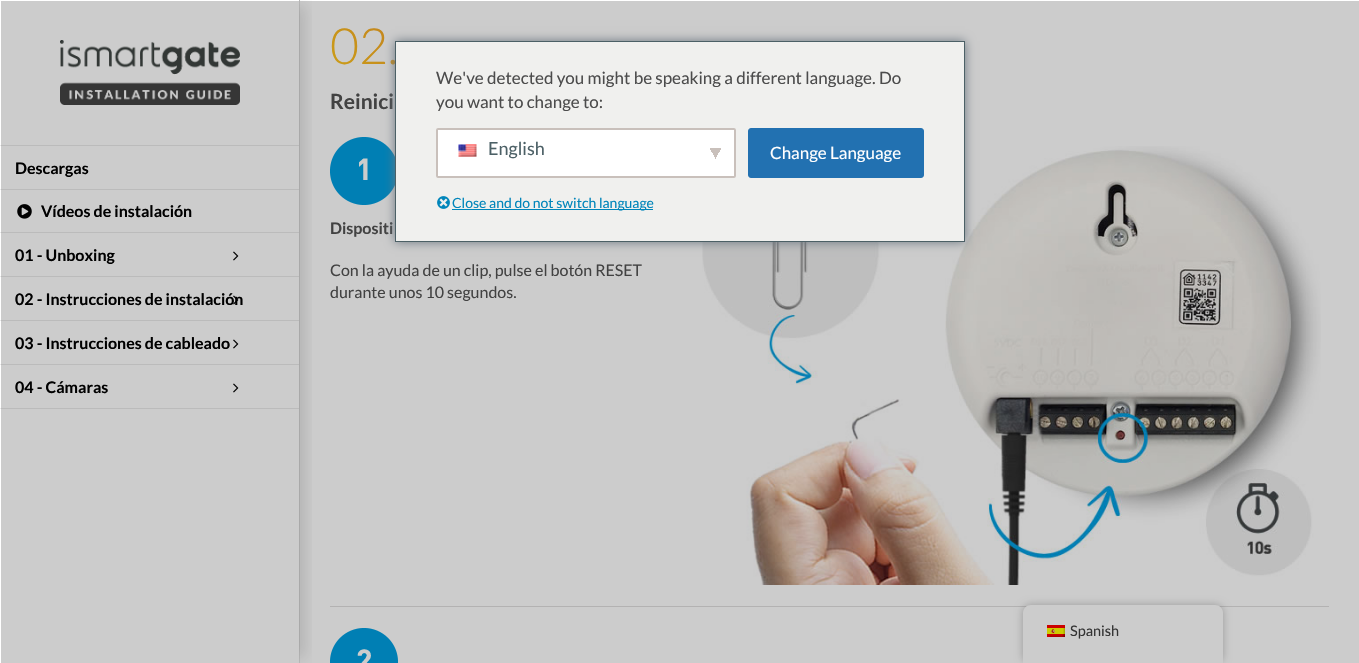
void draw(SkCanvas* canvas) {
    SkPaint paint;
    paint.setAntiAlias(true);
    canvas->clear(0xFFFFFFFF);
    paint.setColor(0xFFCCCCCC);
    canvas->drawRect(SkRect::MakeXYWH(1, 1, 1358, 662), paint);
    canvas->drawImageRect(SkImages::DeferredFromEncodedData(SkData::MakeFromFileName("img1.png")), SkRect::MakeXYWH(60, 40, 180, 65), SkSamplingOptions());
    paint.setColor(0xFFEAEAEA);
    canvas->drawRect(SkRect::MakeXYWH(0, 145, 1, 1), paint);
    paint.setColor(0xFFBBBBBB);
    canvas->drawRect(SkRect::MakeXYWH(299, 0, 1, 663), paint);
    canvas->save();
    canvas->clipRect(SkRect::MakeXYWH(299, 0, 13, 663));
    paint.setColor(0x24000000);
    paint.setMaskFilter(SkMaskFilter::MakeBlur(kNormal_SkBlurStyle, 7.5f));
    canvas->drawRect(SkRect::MakeXYWH(289, 5, 15, 653), paint);
    paint.setMaskFilter(nullptr);
    canvas->restore();
    paint.setColor(0xFFBBBBBB);
    canvas->drawRect(SkRect::MakeXYWH(1, 145, 298, 1), paint);
    paint.setColor(0xFFEAEAEA);
    canvas->drawRect(SkRect::MakeXYWH(0, 189, 1, 1), paint);
    paint.setColor(0xFFBBBBBB);
    canvas->drawRect(SkRect::MakeXYWH(1, 189, 298, 1), paint);
    SkFont font1(fontMgr->matchFamilyStyle("Lato", SkFontStyle::Bold()), 16);
    font1.setSubpixel(true);
    paint.setColor(0xFF000000);
    canvas->drawString("Descargas", 15, 174, font1, paint);
    paint.setColor(0xFFEAEAEA);
    canvas->drawRect(SkRect::MakeXYWH(0, 232, 1, 1), paint);
    paint.setColor(0xFFBBBBBB);
    canvas->drawRect(SkRect::MakeXYWH(1, 232, 298, 1), paint);
    canvas->drawImageRect(SkImages::DeferredFromEncodedData(SkData::MakeFromFileName("img2.png")), SkRect::MakeXYWH(17, 204, 15, 15), SkSamplingOptions());
    paint.setColor(0xFF000000);
    canvas->drawString("Vídeos de instalación", 41, 217, font1, paint);
    paint.setColor(0xFFEAEAEA);
    canvas->drawRect(SkRect::MakeXYWH(0, 276, 1, 1), paint);
    paint.setColor(0xFFBBBBBB);
    canvas->drawRect(SkRect::MakeXYWH(1, 276, 298, 1), paint);
    paint.setColor(0xFF000000);
    canvas->drawString("01 - Unboxing", 15, 261, font1, paint);
    canvas->drawImageRect(SkImages::DeferredFromEncodedData(SkData::MakeFromFileName("img3.png")), SkRect::MakeXYWH(233, 251, 6, 10), SkSamplingOptions());
    paint.setColor(0xFFEAEAEA);
    canvas->drawRect(SkRect::MakeXYWH(0, 320, 1, 1), paint);
    paint.setColor(0xFFBBBBBB);
    canvas->drawRect(SkRect::MakeXYWH(1, 320, 298, 1), paint);
    paint.setColor(0xFF000000);
    canvas->drawString("02 - Instrucciones de instalación", 15, 305, font1, paint);
    canvas->drawImageRect(SkImages::DeferredFromEncodedData(SkData::MakeFromFileName("img4.png")), SkRect::MakeXYWH(233, 295, 6, 10), SkSamplingOptions());
    paint.setColor(0xFFEAEAEA);
    canvas->drawRect(SkRect::MakeXYWH(0, 364, 1, 1), paint);
    paint.setColor(0xFFBBBBBB);
    canvas->drawRect(SkRect::MakeXYWH(1, 364, 298, 1), paint);
    paint.setColor(0xFF000000);
    canvas->drawString("03 - Instrucciones de cableado", 15, 349, font1, paint);
    canvas->drawImageRect(SkImages::DeferredFromEncodedData(SkData::MakeFromFileName("img3.png")), SkRect::MakeXYWH(233, 339, 6, 10), SkSamplingOptions());
    paint.setColor(0xFFEAEAEA);
    canvas->drawRect(SkRect::MakeXYWH(0, 408, 1, 1), paint);
    paint.setColor(0xFFBBBBBB);
    canvas->drawRect(SkRect::MakeXYWH(1, 408, 298, 1), paint);
    paint.setColor(0xFF000000);
    canvas->drawString("04 - Cámaras", 15, 393, font1, paint);
    canvas->drawImageRect(SkImages::DeferredFromEncodedData(SkData::MakeFromFileName("img3.png")), SkRect::MakeXYWH(233, 383, 6, 10), SkSamplingOptions());
    SkFont font2(fontMgr->matchFamilyStyle("Lato", SkFontStyle(300, SkFontStyle::kNormal_Width, SkFontStyle::kUpright_Slant)), 50);
    font2.setSubpixel(true);
    {
        const SkColor colors[] = {0xFFCC9F18, 0xFFB75D26, 0xFFA92F31, 0xFF724260, 0xFF445288};
        const float stops[] = {0, 0.25f, 0.5f, 0.75f, 1};
        const SkPoint ends[] = {{522, 303}, {1137, -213}};
        paint.setShader(SkGradientShader::MakeLinear(ends, colors, stops, 5, SkTileMode::kClamp));
        paint.setAlpha(255);
    }
    canvas->drawString("02.", 330, 64, font2, paint);
    SkFont font3(fontMgr->matchFamilyStyle("Lato", SkFontStyle::Bold()), 21);
    font3.setSubpixel(true);
    paint.setShader(nullptr);
    paint.setColor(0xFF424242);
    canvas->drawString("Reinici", 330, 109, font3, paint);
    canvas->drawImageRect(SkImages::DeferredFromEncodedData(SkData::MakeFromFileName("img5.png")), SkRect::MakeXYWH(330, 137, 65, 68), SkSamplingOptions());
    canvas->drawString("Dispositi", 330, 234, font1, paint);
    SkFont font4(fontMgr->matchFamilyStyle("Lato", SkFontStyle::Normal()), 16);
    font4.setSubpixel(true);
    canvas->drawString("Con la ayuda de un clip, pulse el botón RESET", 330, 276, font4, paint);
    canvas->drawString("durante unos 10 segundos.", 330, 298, font4, paint);
    canvas->drawImageRect(SkImages::DeferredFromEncodedData(SkData::MakeFromFileName("img6.png")), SkRect::MakeXYWH(702, 146, 619, 439), SkSamplingOptions());
    paint.setColor(0xFFB3B2B2);
    canvas->drawRect(SkRect::MakeXYWH(330, 606, 999, 1), paint);
    canvas->drawImageRect(SkImages::DeferredFromEncodedData(SkData::MakeFromFileName("img7.png")), SkRect::MakeXYWH(330, 628, 68, 35), SkSamplingOptions());
    paint.setColor(0xFF6C7781);
    paint.setMaskFilter(SkMaskFilter::MakeBlur(kNormal_SkBlurStyle, 5));
    canvas->drawRect(SkRect::MakeXYWH(395, 41, 570, 201), paint);
    paint.setMaskFilter(nullptr);
    paint.setColor(0xFFF0F0EE);
    canvas->drawRect(SkRect::MakeXYWH(395.5f, 41.5f, 569, 200), paint);
    paint.setStyle(SkPaint::kStroke_Style);
    paint.setStrokeWidth(1);
    paint.setColor(0xFF4C6066);
    canvas->drawRect(SkRect::MakeXYWH(395.5f, 41.5f, 569, 200), paint);
    SkFont font5(fontMgr->matchFamilyStyle("Lato", SkFontStyle::Normal()), 17);
    font5.setSubpixel(true);
    paint.setStyle(SkPaint::kFill_Style);
    paint.setColor(0xFF4C4C4C);
    canvas->drawString("We've detected you might be speaking a different language. Do", 436, 84, font5, paint);
    canvas->drawString("you want to change to:", 436, 108, font5, paint);
    paint.setColor(0xFFFFFFFF);
    canvas->drawRoundRect(SkRect::MakeXYWH(436, 128, 300, 50), 2, 2, paint);
    {
        const SkColor colors[] = {0xFFC9C0BB, 0xFFFFFFFF};
        const float stops[] = {0.5f, 0.5f};
        const SkPoint ends[] = {{714, 151}, {723, 156}};
        paint.setShader(SkGradientShader::MakeLinear(ends, colors, stops, 2, SkTileMode::kClamp));
        paint.setAlpha(255);
    }
    canvas->drawRect(SkRect::MakeXYWH(716, 148, 5, 12), paint);
    {
        const SkColor colors[] = {0xFFFFFFFF, 0xFFC9C0BB};
        const float stops[] = {0.5f, 0.5f};
        const SkPoint ends[] = {{708, 156}, {717, 151}};
        paint.setShader(SkGradientShader::MakeLinear(ends, colors, stops, 2, SkTileMode::kClamp));
        paint.setAlpha(255);
    }
    canvas->drawRect(SkRect::MakeXYWH(710, 148, 6, 12), paint);
    paint.setStyle(SkPaint::kStroke_Style);
    paint.setStrokeWidth(2);
    paint.setShader(nullptr);
    paint.setColor(0xFFC9C0BB);
    canvas->drawRoundRect(SkRect::MakeXYWH(437, 129, 298, 48), 1, 1, paint);
    canvas->drawImageRect(SkImages::DeferredFromEncodedData(SkData::MakeFromFileName("img8.png")), SkRect::MakeXYWH(458, 144, 19, 13), SkSamplingOptions());
    SkFont font6(fontMgr->matchFamilyStyle("Lato", SkFontStyle::Normal()), 18);
    font6.setSubpixel(true);
    paint.setStyle(SkPaint::kFill_Style);
    paint.setColor(0xFF4C6066);
    canvas->drawString("English", 488, 155, font6, paint);
    paint.setColor(0xFF2271B1);
    canvas->drawRoundRect(SkRect::MakeXYWH(748.5f, 128.5f, 175, 49), 2.5f, 2.5f, paint);
    paint.setStyle(SkPaint::kStroke_Style);
    paint.setStrokeWidth(1);
    canvas->drawRoundRect(SkRect::MakeXYWH(748.5f, 128.5f, 175, 49), 2.5f, 2.5f, paint);
    paint.setStyle(SkPaint::kFill_Style);
    paint.setColor(0xFFFFFFFF);
    canvas->drawString("Change Language", 770, 159, font5, paint);
    canvas->drawImageRect(SkImages::DeferredFromEncodedData(SkData::MakeFromFileName("img9.png")), SkRect::MakeXYWH(437, 196, 13, 13), SkSamplingOptions());
    paint.setColor(0xFF0085BA);
    canvas->drawRect(SkRect::MakeXYWH(452, 209, 201, 1), paint);
    SkFont font7(fontMgr->matchFamilyStyle("Lato", SkFontStyle::Normal()), 14);
    font7.setSubpixel(true);
    canvas->drawString("Close and do not switch language", 452, 208, font7, paint);
    paint.setColor(0x40000000);
    paint.setMaskFilter(SkMaskFilter::MakeBlur(kNormal_SkBlurStyle, 4));
    canvas->drawRoundRect(SkRect::MakeXYWH(1023, 605, 200, 58), 8, 8, paint);
    paint.setMaskFilter(nullptr);
    paint.setColor(0xFFCCCCCC);
    canvas->drawPath(SkPathBuilder().moveTo(1031, 605).lineTo(1215, 605).cubicTo(1219.5f, 605, 1223, 608.5f, 1223, 613).lineTo(1223, 663).lineTo(1023, 663).lineTo(1023, 613).cubicTo(1023, 608.5f, 1026.5f, 605, 1031, 605).close().detach(), paint);
    canvas->drawImageRect(SkImages::DeferredFromEncodedData(SkData::MakeFromFileName("img10.png")), SkRect::MakeXYWH(1047, 625, 18, 12), SkSamplingOptions());
    SkFont font8(fontMgr->matchFamilyStyle("Lato", SkFontStyle::Normal()), 14.5f);
    font8.setSubpixel(true);
    paint.setColor(0xFF333333);
    canvas->drawString("Spanish", 1070, 636, font8, paint);
}
